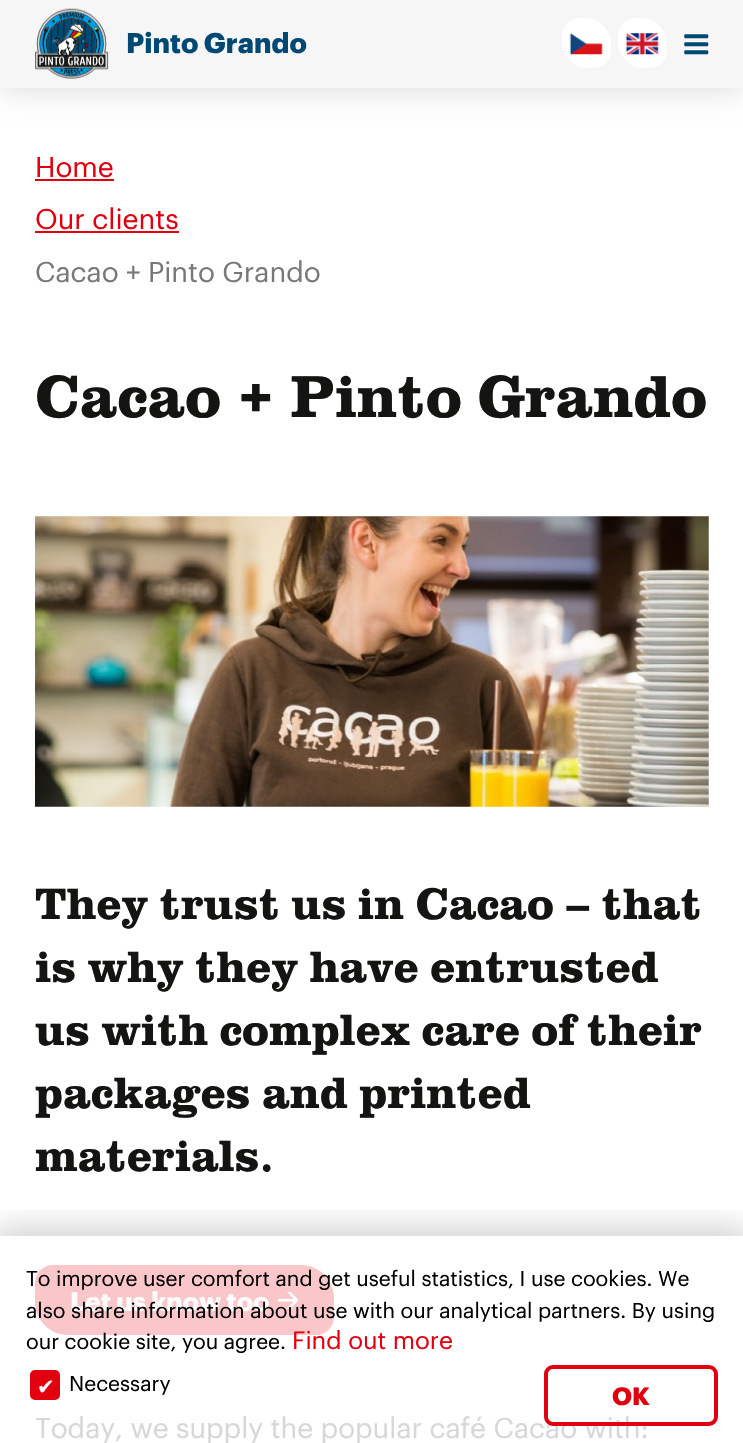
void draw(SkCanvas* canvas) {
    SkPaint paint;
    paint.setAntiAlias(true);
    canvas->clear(0xFFFFFFFF);
    canvas->save();
    canvas->clipPath(SkPathBuilder(SkPathFillType::kEvenOdd).moveTo(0, 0).lineTo(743, 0).lineTo(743, 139).lineTo(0, 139).close().moveTo(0, 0).lineTo(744, 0).lineTo(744, 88).lineTo(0, 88).close().detach(), true);
    paint.setColor(0x26000000);
    paint.setMaskFilter(SkMaskFilter::MakeBlur(kNormal_SkBlurStyle, 16.5f));
    canvas->drawRect(SkRect::MakeXYWH(0, 0, 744, 88), paint);
    paint.setMaskFilter(nullptr);
    canvas->restore();
    paint.setColor(0xF2F5F6F6);
    canvas->drawRect(SkRect::MakeXYWH(0, 0, 743, 88), paint);
    canvas->drawImageRect(SkImages::DeferredFromEncodedData(SkData::MakeFromFileName("img1.png")), SkRect::MakeXYWH(35, 8, 74, 71), SkSamplingOptions());
    SkFont font1(fontMgr->matchFamilyStyle("Graphik", SkFontStyle::Bold()), 28);
    font1.setSubpixel(true);
    paint.setColor(0xFF004974);
    canvas->drawString("Pinto Grando", 126, 53, font1, paint);
    paint.setColor(0xFFFFFFFF);
    canvas->drawPath(SkPathBuilder().moveTo(580, 18).lineTo(585, 18).cubicTo(599.5f, 18, 611, 29.5f, 611, 44).lineTo(611, 50).cubicTo(611, 60, 603, 68, 593, 68).lineTo(588, 68).cubicTo(573.5f, 68, 562, 56.5f, 562, 42).lineTo(562, 36).cubicTo(562, 26, 570, 18, 580, 18).close().detach(), paint);
    canvas->drawImageRect(SkImages::DeferredFromEncodedData(SkData::MakeFromFileName("img2.png")), SkRect::MakeXYWH(569, 33, 34, 22), SkSamplingOptions());
    canvas->drawPath(SkPathBuilder().moveTo(636, 18).lineTo(641, 18).cubicTo(655.5f, 18, 667, 29.5f, 667, 44).lineTo(667, 50).cubicTo(667, 60, 659, 68, 649, 68).lineTo(644, 68).cubicTo(629.5f, 68, 618, 56.5f, 618, 42).lineTo(618, 36).cubicTo(618, 26, 626, 18, 636, 18).close().detach(), paint);
    canvas->drawImageRect(SkImages::DeferredFromEncodedData(SkData::MakeFromFileName("img3.png")), SkRect::MakeXYWH(625, 33, 34, 22), SkSamplingOptions());
    canvas->drawImageRect(SkImages::DeferredFromEncodedData(SkData::MakeFromFileName("img4.png")), SkRect::MakeXYWH(684, 34, 25, 21), SkSamplingOptions());
    SkFont font2(fontMgr->matchFamilyStyle("Graphik", SkFontStyle::Normal()), 28);
    font2.setSubpixel(true);
    paint.setColor(0xFFE2000F);
    canvas->drawString("Home", 35, 177, font2, paint);
    canvas->drawRect(SkRect::MakeXYWH(35, 179, 79, 2), paint);
    canvas->drawString("Our clients", 35, 229, font2, paint);
    canvas->drawRect(SkRect::MakeXYWH(35, 231, 144, 2), paint);
    paint.setColor(0xFF787877);
    canvas->drawString("Cacao + Pinto Grando", 35, 282, font2, paint);
    SkFont font3(fontMgr->matchFamilyStyle("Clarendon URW", SkFontStyle::Bold()), 61.25f);
    font3.setSubpixel(true);
    paint.setColor(0xFF141412);
    canvas->drawString("Cacao + Pinto Grando", 35, 417, font3, paint);
    canvas->drawImageRect(SkImages::DeferredFromEncodedData(SkData::MakeFromFileName("img5.png")), SkRect::MakeXYWH(35, 516, 674, 291), SkSamplingOptions());
    SkFont font4(fontMgr->matchFamilyStyle("Clarendon URW", SkFontStyle::Bold()), 45.5f);
    font4.setSubpixel(true);
    canvas->drawString("They trust us in Cacao – that", 35, 919, font4, paint);
    canvas->drawString("is why they have entrusted", 35, 982, font4, paint);
    canvas->drawString("us with complex care of their", 35, 1045, font4, paint);
    canvas->drawString("packages and printed", 35, 1108, font4, paint);
    canvas->drawString("materials.", 35, 1171, font4, paint);
    paint.setColor(0xFFF9C7CA);
    canvas->drawPath(SkPathBuilder().moveTo(53, 1265).lineTo(301, 1265).cubicTo(319, 1265, 334, 1280, 334, 1298).lineTo(334, 1317).cubicTo(334, 1327, 326, 1335, 316, 1335).lineTo(68, 1335).cubicTo(50, 1335, 35, 1320, 35, 1302).lineTo(35, 1283).cubicTo(35, 1273, 43, 1265, 53, 1265).close().detach(), paint);
    SkFont font5(fontMgr->matchFamilyStyle("Graphik", SkFontStyle::Bold()), 26.25f);
    font5.setSubpixel(true);
    paint.setColor(0xFFFCFCFC);
    canvas->drawString("Let us know too", 70, 1311, font5, paint);
    canvas->drawImageRect(SkImages::DeferredFromEncodedData(SkData::MakeFromFileName("img6.png")), SkRect::MakeXYWH(278, 1292, 20, 17), SkSamplingOptions());
    paint.setColor(0xFFD7D7D7);
    canvas->drawString("Today, we supply the popular café Cacao with:", 35, 1438, font2, paint);
    canvas->save();
    canvas->clipRect(SkRect::MakeXYWH(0, 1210, 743, 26));
    paint.setColor(0x33000000);
    paint.setMaskFilter(SkMaskFilter::MakeBlur(kNormal_SkBlurStyle, 16));
    canvas->drawRect(SkRect::MakeXYWH(-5, 1230, 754, 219), paint);
    paint.setMaskFilter(nullptr);
    canvas->restore();
    SkFont font6(fontMgr->matchFamilyStyle("Graphik", SkFontStyle::Normal()), 21);
    font6.setSubpixel(true);
    paint.setColor(0xFF000000);
    canvas->drawString("To improve user comfort and get useful statistics, I use cookies. We", 26, 1286, font6, paint);
    canvas->drawString("also share information about use with our analytical partners. By using", 26, 1318, font6, paint);
    canvas->drawString("our cookie site, you agree.", 26, 1349, font6, paint);
    SkFont font7(fontMgr->matchFamilyStyle("Graphik", SkFontStyle::Normal()), 24.5f);
    font7.setSubpixel(true);
    paint.setColor(0xFFE2000F);
    canvas->drawString("Find out more", 292, 1349, font7, paint);
    canvas->drawRoundRect(SkRect::MakeXYWH(32, 1372, 26, 26), 3, 3, paint);
    paint.setStyle(SkPaint::kStroke_Style);
    paint.setStrokeWidth(4);
    canvas->drawRoundRect(SkRect::MakeXYWH(32, 1372, 26, 26), 3, 3, paint);
    SkFont font8(fontMgr->matchFamilyStyle("DejaVu Sans", SkFontStyle::Normal()), 21);
    font8.setSubpixel(true);
    paint.setStyle(SkPaint::kFill_Style);
    paint.setColor(0xFFFCFCFC);
    canvas->drawString("✔", 37, 1394, font8, paint);
    paint.setColor(0xFF000000);
    canvas->drawString("Necessary", 69, 1391, font6, paint);
    paint.setStyle(SkPaint::kStroke_Style);
    paint.setColor(0xFFE2000F);
    canvas->drawRoundRect(SkRect::MakeXYWH(546, 1367, 170, 57), 7, 7, paint);
    SkFont font9(fontMgr->matchFamilyStyle("Graphik", SkFontStyle::Bold()), 24.5f);
    font9.setSubpixel(true);
    paint.setStyle(SkPaint::kFill_Style);
    canvas->drawString("OK", 612, 1405, font9, paint);
}
